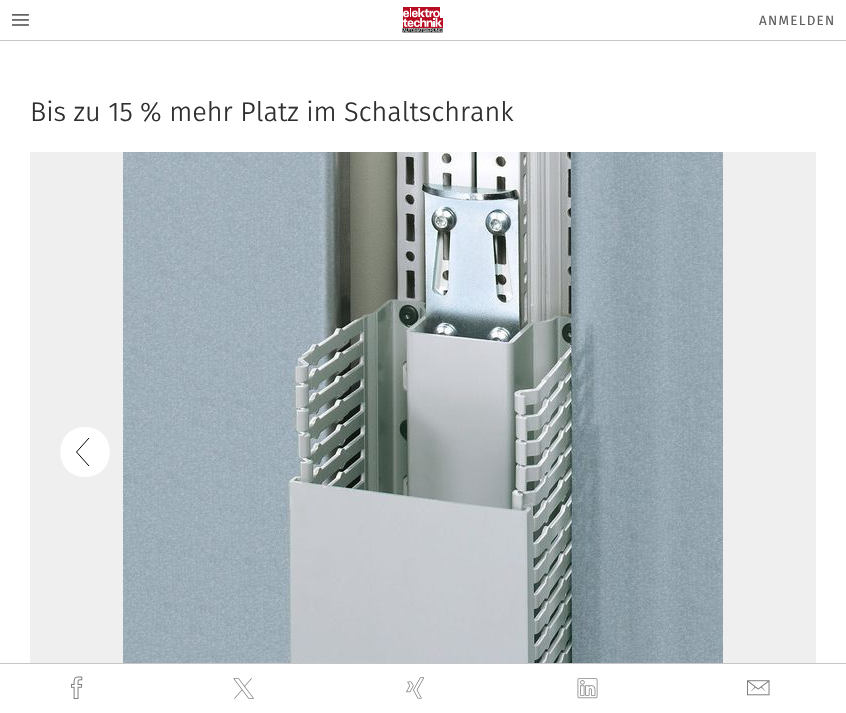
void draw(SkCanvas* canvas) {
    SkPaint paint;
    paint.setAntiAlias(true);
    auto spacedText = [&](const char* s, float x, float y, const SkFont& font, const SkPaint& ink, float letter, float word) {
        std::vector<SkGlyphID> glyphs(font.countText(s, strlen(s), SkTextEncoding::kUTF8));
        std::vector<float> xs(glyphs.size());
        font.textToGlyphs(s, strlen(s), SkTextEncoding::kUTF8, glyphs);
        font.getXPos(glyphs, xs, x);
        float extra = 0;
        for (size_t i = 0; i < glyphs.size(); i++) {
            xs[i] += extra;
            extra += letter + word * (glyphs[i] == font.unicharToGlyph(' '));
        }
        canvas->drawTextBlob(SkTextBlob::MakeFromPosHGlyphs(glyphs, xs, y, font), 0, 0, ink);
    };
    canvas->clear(0xFFFFFFFF);
    paint.setColor(0xFFC6C6C6);
    canvas->drawRect(SkRect::MakeXYWH(0, 40, 846, 1), paint);
    canvas->drawImageRect(SkImages::DeferredFromEncodedData(SkData::MakeFromFileName("img1.png")), SkRect::MakeXYWH(12, 14, 17, 12), SkSamplingOptions());
    canvas->drawImageRect(SkImages::DeferredFromEncodedData(SkData::MakeFromFileName("img2.png")), SkRect::MakeXYWH(402, 7, 41, 26), SkSamplingOptions());
    SkFont font1(fontMgr->matchFamilyStyle("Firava", SkFontStyle::Normal()), 13.5f);
    font1.setSubpixel(true);
    paint.setColor(0xFF5E5E5E);
    spacedText("ANMELDEN", 759, 25, font1, paint, 1.25f, 0);
    SkFont font2(fontMgr->matchFamilyStyle("Firava", SkFontStyle(300, SkFontStyle::kNormal_Width, SkFontStyle::kUpright_Slant)), 27);
    font2.setSubpixel(true);
    paint.setColor(0xFF303030);
    canvas->drawString("Bis zu 15 % mehr Platz im Schaltschrank", 30, 121, font2, paint);
    paint.setColor(0xFFEFEFEF);
    canvas->drawRect(SkRect::MakeXYWH(30, 152, 786, 511), paint);
    paint.setColor(0xFFFFFFFF);
    canvas->drawPath(SkPathBuilder().moveTo(85, 477).cubicTo(118, 477, 118, 427, 85, 427).cubicTo(52, 427, 52, 477, 85, 477).detach(), paint);
    paint.setStyle(SkPaint::kStroke_Style);
    paint.setStrokeWidth(1);
    paint.setColor(0xFF000000);
    canvas->drawPath(SkPathBuilder().moveTo(89, 438).lineTo(76.5f, 452).lineTo(89, 466).detach(), paint);
    canvas->drawImageRect(SkImages::DeferredFromEncodedData(SkData::MakeFromFileName("img3.png")), SkRect::MakeXYWH(123, 152, 600, 511), SkSamplingOptions());
    paint.setStyle(SkPaint::kFill_Style);
    paint.setColor(0xFFC6C6C6);
    canvas->drawRect(SkRect::MakeXYWH(0, 663, 846, 1), paint);
    canvas->drawImageRect(SkImages::DeferredFromEncodedData(SkData::MakeFromFileName("img4.png")), SkRect::MakeXYWH(71, 676, 12, 23), SkSamplingOptions());
    canvas->drawImageRect(SkImages::DeferredFromEncodedData(SkData::MakeFromFileName("img5.png")), SkRect::MakeXYWH(233, 678, 21, 21), SkSamplingOptions());
    canvas->drawImageRect(SkImages::DeferredFromEncodedData(SkData::MakeFromFileName("img6.png")), SkRect::MakeXYWH(406, 677, 19, 22), SkSamplingOptions());
    canvas->drawImageRect(SkImages::DeferredFromEncodedData(SkData::MakeFromFileName("img7.png")), SkRect::MakeXYWH(577, 678, 21, 21), SkSamplingOptions());
    canvas->drawImageRect(SkImages::DeferredFromEncodedData(SkData::MakeFromFileName("img8.png")), SkRect::MakeXYWH(747, 680, 23, 16), SkSamplingOptions());
}
